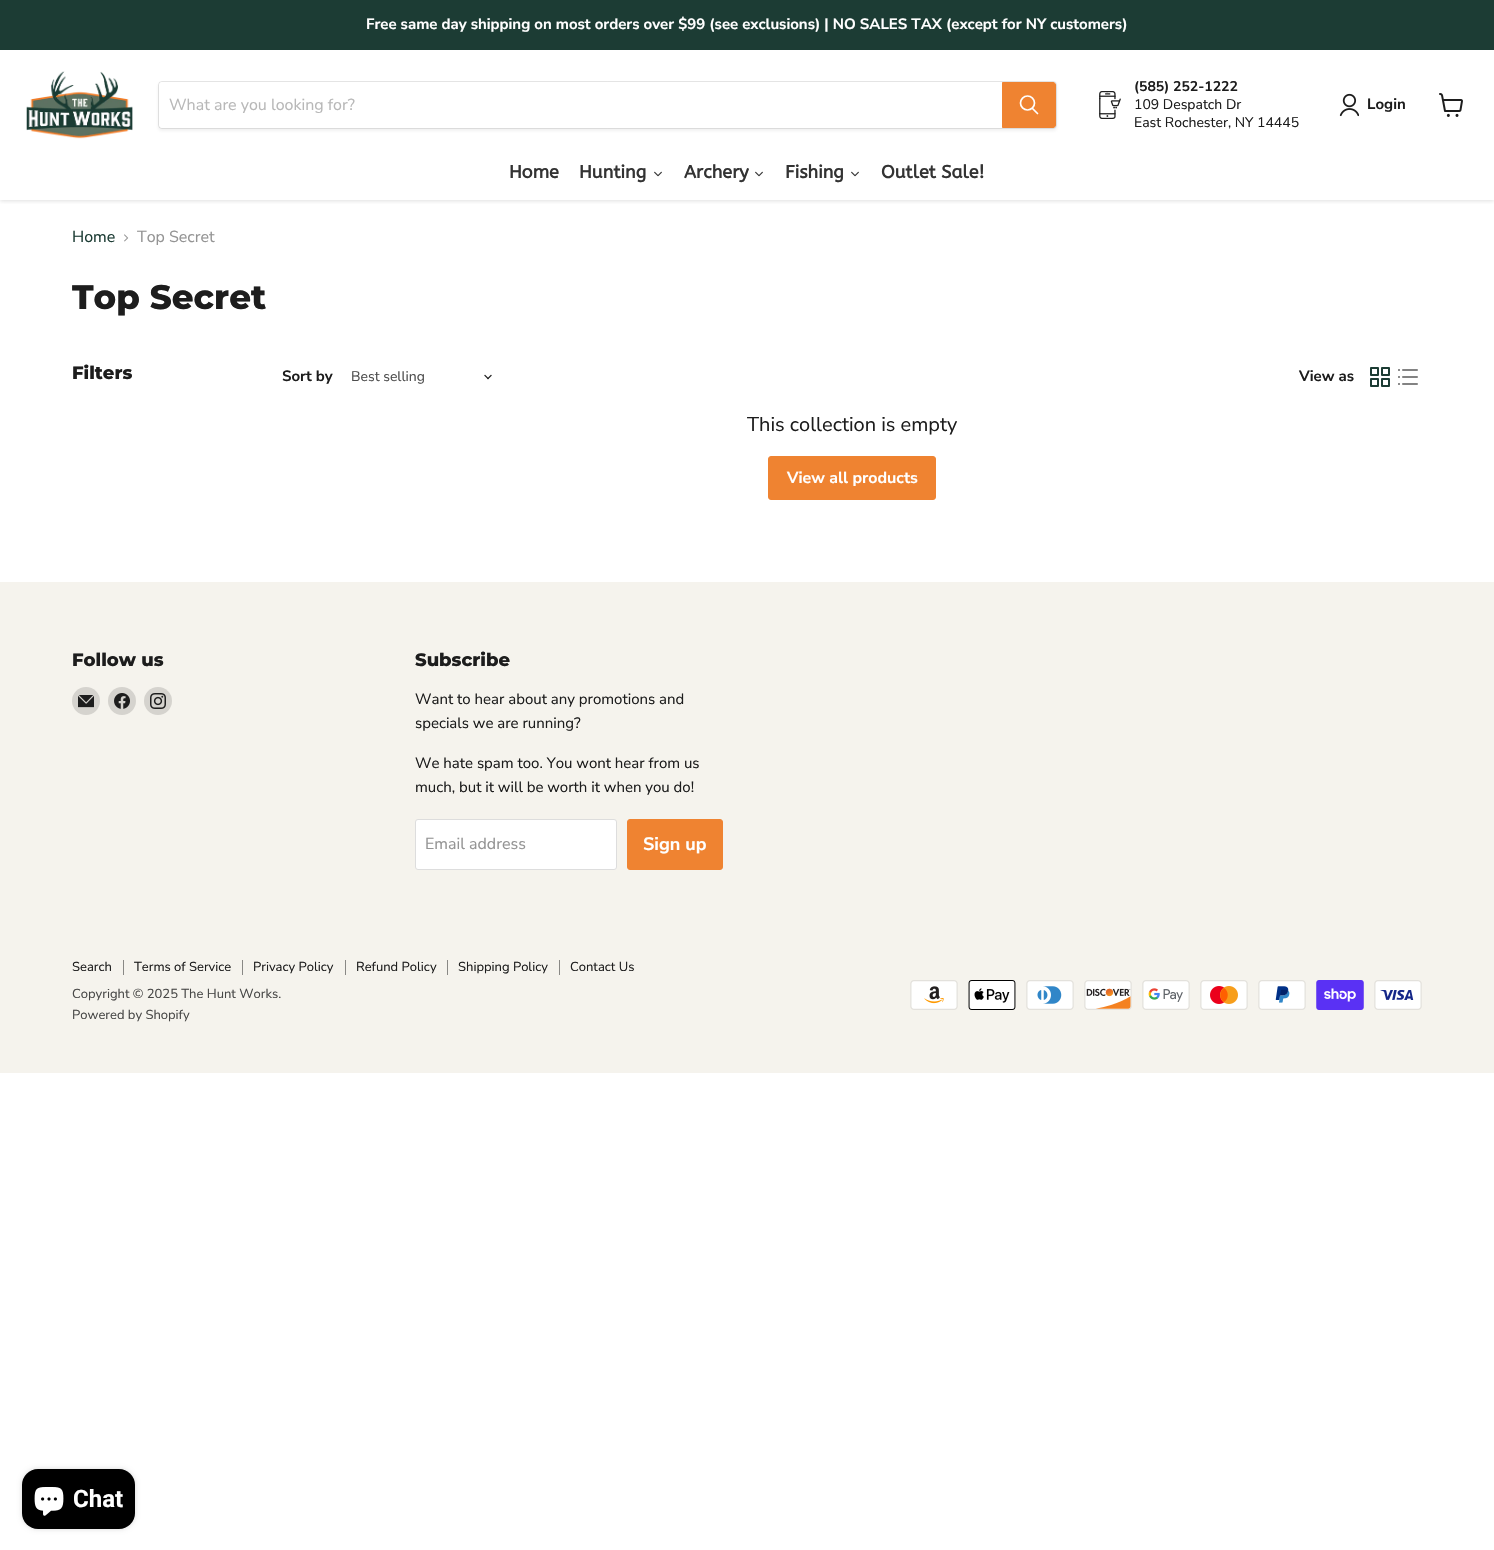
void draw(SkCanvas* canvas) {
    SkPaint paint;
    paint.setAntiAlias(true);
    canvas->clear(0xFFFFFFFF);
    canvas->save();
    canvas->clipRect(SkRect::MakeXYWH(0, 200, 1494, 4));
    paint.setColor(0x40808080);
    paint.setMaskFilter(SkMaskFilter::MakeBlur(kNormal_SkBlurStyle, 2));
    canvas->drawRect(SkRect::MakeXYWH(0, 51, 1494, 150), paint);
    paint.setMaskFilter(nullptr);
    canvas->restore();
    paint.setColor(0xFF1C3C34);
    canvas->drawRect(SkRect::MakeXYWH(0, 0, 1494, 50), paint);
    SkFont font1(fontMgr->matchFamilyStyle("Nunito Sans", SkFontStyle::Bold()), 15);
    font1.setSubpixel(true);
    paint.setColor(0xFFFFFFFF);
    canvas->drawString("Free same day shipping on most orders over $99 (see exclusions) | NO SALES TAX (except for NY customers)", 366, 29, font1, paint);
    canvas->drawImageRect(SkImages::DeferredFromEncodedData(SkData::MakeFromFileName("img1.png")), SkRect::MakeXYWH(26, 71, 107, 68), SkSamplingOptions());
    paint.setColor(0x1C808080);
    paint.setMaskFilter(SkMaskFilter::MakeBlur(kNormal_SkBlurStyle, 1.5f));
    canvas->drawRoundRect(SkRect::MakeXYWH(158, 83, 899, 48), 4, 4, paint);
    paint.setMaskFilter(nullptr);
    paint.setStyle(SkPaint::kStroke_Style);
    paint.setStrokeWidth(1);
    paint.setColor(0x33808080);
    canvas->drawRoundRect(SkRect::MakeXYWH(158.5f, 81.5f, 898, 47), 3.5f, 3.5f, paint);
    paint.setStyle(SkPaint::kFill_Style);
    paint.setColor(0xFFFFFFFF);
    canvas->drawPath(SkPathBuilder().moveTo(162, 82).lineTo(1002, 82).lineTo(1002, 128).lineTo(162, 128).cubicTo(160.5f, 128, 159, 126.5f, 159, 125).lineTo(159, 85).cubicTo(159, 83.5f, 160.5f, 82, 162, 82).close().detach(), paint);
    SkFont font2(fontMgr->matchFamilyStyle("Nunito Sans", SkFontStyle::Normal()), 16);
    font2.setSubpixel(true);
    paint.setColor(0xFFB8B8B8);
    canvas->drawString("What are you looking for?", 169, 110, font2, paint);
    paint.setColor(0xFFEF8331);
    canvas->drawPath(SkPathBuilder().moveTo(1002.5f, 82.5f).lineTo(1053, 82.5f).cubicTo(1054.5f, 82.5f, 1055.5f, 83.5f, 1055.5f, 85).lineTo(1055.5f, 125).cubicTo(1055.5f, 126.5f, 1054.5f, 127.5f, 1053, 127.5f).lineTo(1002.5f, 127.5f).close().detach(), paint);
    paint.setStyle(SkPaint::kStroke_Style);
    canvas->drawPath(SkPathBuilder().moveTo(1002.5f, 82.5f).lineTo(1053, 82.5f).cubicTo(1054.5f, 82.5f, 1055.5f, 83.5f, 1055.5f, 85).lineTo(1055.5f, 125).cubicTo(1055.5f, 126.5f, 1054.5f, 127.5f, 1053, 127.5f).lineTo(1002.5f, 127.5f).close().detach(), paint);
    paint.setStrokeWidth(1.7f);
    paint.setStrokeCap(SkPaint::kRound_Cap);
    paint.setColor(0xFFFFFFFF);
    canvas->drawPath(SkPathBuilder().moveTo(1037.5f, 113.5f).lineTo(1032.5f, 108.5f).detach(), paint);
    paint.setStrokeCap(SkPaint::kButt_Cap);
    canvas->drawCircle(1027.5f, 103, 7, paint);
    canvas->drawImageRect(SkImages::DeferredFromEncodedData(SkData::MakeFromFileName("img2.png")), SkRect::MakeXYWH(1099, 91, 22, 28), SkSamplingOptions());
    SkFont font3(fontMgr->matchFamilyStyle("Nunito Sans", SkFontStyle::Bold()), 14);
    font3.setSubpixel(true);
    paint.setStyle(SkPaint::kFill_Style);
    paint.setColor(0xFF1D1D1D);
    canvas->drawString("(585) 252-1222", 1134, 91, font3, paint);
    SkFont font4(fontMgr->matchFamilyStyle("Nunito Sans", SkFontStyle::Normal()), 14);
    font4.setSubpixel(true);
    canvas->drawString("109 Despatch Dr", 1134, 109, font4, paint);
    canvas->drawString("East Rochester, NY 14445", 1134, 127, font4, paint);
    canvas->drawImageRect(SkImages::DeferredFromEncodedData(SkData::MakeFromFileName("img3.png")), SkRect::MakeXYWH(1339, 93, 20, 24), SkSamplingOptions());
    canvas->drawString("Login", 1367, 109, font1, paint);
    canvas->drawImageRect(SkImages::DeferredFromEncodedData(SkData::MakeFromFileName("img4.png")), SkRect::MakeXYWH(1439, 93, 24, 24), SkSamplingOptions());
    SkFont font5(fontMgr->matchFamilyStyle("ABeeZee", SkFontStyle::Bold()), 18);
    font5.setSubpixel(true);
    paint.setColor(0xFF333333);
    canvas->drawString("Home", 509, 178, font5, paint);
    canvas->drawString("Hunting", 579, 178, font5, paint);
    canvas->drawImageRect(SkImages::DeferredFromEncodedData(SkData::MakeFromFileName("img5.png")), SkRect::MakeXYWH(654, 171, 8, 6), SkSamplingOptions());
    canvas->drawString("Archery", 684, 178, font5, paint);
    canvas->drawImageRect(SkImages::DeferredFromEncodedData(SkData::MakeFromFileName("img5.png")), SkRect::MakeXYWH(755, 171, 8, 6), SkSamplingOptions());
    canvas->drawString("Fishing", 785, 178, font5, paint);
    canvas->drawImageRect(SkImages::DeferredFromEncodedData(SkData::MakeFromFileName("img5.png")), SkRect::MakeXYWH(851, 171, 8, 6), SkSamplingOptions());
    canvas->drawString("Outlet Sale!", 881, 178, font5, paint);
    paint.setColor(0xFF1C3C34);
    canvas->drawString("Home", 72, 242, font2, paint);
    canvas->drawImageRect(SkImages::DeferredFromEncodedData(SkData::MakeFromFileName("img6.png")), SkRect::MakeXYWH(124, 234, 5, 8), SkSamplingOptions());
    paint.setColor(0xFF949494);
    canvas->drawString("Top Secret", 137, 242, font2, paint);
    SkFont font6(fontMgr->matchFamilyStyle("Montserrat", SkFontStyle(800, SkFontStyle::kNormal_Width, SkFontStyle::kUpright_Slant)), 34);
    font6.setSubpixel(true);
    paint.setColor(0xFF1D1D1D);
    canvas->drawString("Top Secret", 72, 309, font6, paint);
    SkFont font7(fontMgr->matchFamilyStyle("Montserrat", SkFontStyle(800, SkFontStyle::kNormal_Width, SkFontStyle::kUpright_Slant)), 18);
    font7.setSubpixel(true);
    canvas->drawString("Filters", 72, 379, font7, paint);
    canvas->drawString("Sort by", 282, 381, font1, paint);
    paint.setColor(0xFF4D4D4D);
    canvas->drawString("Best selling", 351, 381, font4, paint);
    canvas->drawImageRect(SkImages::DeferredFromEncodedData(SkData::MakeFromFileName("img7.png")), SkRect::MakeXYWH(484, 374, 8, 6), SkSamplingOptions());
    paint.setColor(0xFF1D1D1D);
    canvas->drawString("View as", 1299, 381, font1, paint);
    canvas->drawImageRect(SkImages::DeferredFromEncodedData(SkData::MakeFromFileName("img8.png")), SkRect::MakeXYWH(1370, 367, 20, 20), SkSamplingOptions());
    canvas->drawImageRect(SkImages::DeferredFromEncodedData(SkData::MakeFromFileName("img9.png")), SkRect::MakeXYWH(1398, 369, 20, 16), SkSamplingOptions());
    SkFont font8(fontMgr->matchFamilyStyle("Nunito Sans", SkFontStyle::Normal()), 20);
    font8.setSubpixel(true);
    canvas->drawString("This collection is empty", 747, 431, font8, paint);
    paint.setColor(0xFFEF8331);
    canvas->drawRoundRect(SkRect::MakeXYWH(768.5f, 456.5f, 167, 43), 2.5f, 2.5f, paint);
    paint.setStyle(SkPaint::kStroke_Style);
    paint.setStrokeWidth(1);
    canvas->drawRoundRect(SkRect::MakeXYWH(768.5f, 456.5f, 167, 43), 2.5f, 2.5f, paint);
    SkFont font9(fontMgr->matchFamilyStyle("Nunito Sans", SkFontStyle::Bold()), 16);
    font9.setSubpixel(true);
    paint.setStyle(SkPaint::kFill_Style);
    paint.setColor(0xFFFFFFFF);
    canvas->drawString("View all products", 787, 483, font9, paint);
    paint.setColor(0xFFF5F3ED);
    canvas->drawRect(SkRect::MakeXYWH(0, 582, 1494, 491), paint);
    paint.setColor(0xFF1D1D1D);
    canvas->drawString("Follow us", 72, 666, font7, paint);
    paint.setColor(0xFFD5D3CE);
    canvas->drawCircle(86, 701, 14, paint);
    canvas->drawImageRect(SkImages::DeferredFromEncodedData(SkData::MakeFromFileName("img10.png")), SkRect::MakeXYWH(78, 695, 16, 13), SkSamplingOptions());
    canvas->drawCircle(122, 701, 14, paint);
    canvas->drawImageRect(SkImages::DeferredFromEncodedData(SkData::MakeFromFileName("img11.png")), SkRect::MakeXYWH(114, 693, 16, 16), SkSamplingOptions());
    canvas->drawCircle(158, 701, 14, paint);
    canvas->drawImageRect(SkImages::DeferredFromEncodedData(SkData::MakeFromFileName("img12.png")), SkRect::MakeXYWH(150, 693, 16, 16), SkSamplingOptions());
    paint.setColor(0xFF1D1D1D);
    canvas->drawString("Subscribe", 415, 666, font7, paint);
    SkFont font10(fontMgr->matchFamilyStyle("Nunito Sans", SkFontStyle::Normal()), 15);
    font10.setSubpixel(true);
    canvas->drawString("Want to hear about any promotions and", 415, 704, font10, paint);
    canvas->drawString("specials we are running?", 415, 728, font10, paint);
    canvas->drawString("We hate spam too. You wont hear from us", 415, 768, font10, paint);
    canvas->drawString("much, but it will be worth it when you do!", 415, 792, font10, paint);
    paint.setColor(0xFFFFFFFF);
    canvas->drawRoundRect(SkRect::MakeXYWH(415.5f, 819.5f, 201, 50), 2.5f, 2.5f, paint);
    paint.setStyle(SkPaint::kStroke_Style);
    paint.setColor(0xFFDDDDDD);
    canvas->drawRoundRect(SkRect::MakeXYWH(415.5f, 819.5f, 201, 50), 2.5f, 2.5f, paint);
    paint.setStyle(SkPaint::kFill_Style);
    paint.setColor(0xFF949494);
    canvas->drawString("Email address", 425, 849, font2, paint);
    paint.setColor(0xFFEF8331);
    canvas->drawRoundRect(SkRect::MakeXYWH(627.5f, 819.5f, 95, 50), 2.5f, 2.5f, paint);
    paint.setStyle(SkPaint::kStroke_Style);
    canvas->drawRoundRect(SkRect::MakeXYWH(627.5f, 819.5f, 95, 50), 2.5f, 2.5f, paint);
    SkFont font11(fontMgr->matchFamilyStyle("Nunito Sans", SkFontStyle::Bold()), 18);
    font11.setSubpixel(true);
    paint.setStyle(SkPaint::kFill_Style);
    paint.setColor(0xFFFFFFFF);
    canvas->drawString("Sign up", 643, 850, font11, paint);
    paint.setColor(0xFF898885);
    canvas->drawRect(SkRect::MakeXYWH(123, 960, 1, 15), paint);
    SkFont font12(fontMgr->matchFamilyStyle("Nunito Sans", SkFontStyle::Normal()), 13);
    font12.setSubpixel(true);
    paint.setColor(0xFF1D1D1D);
    canvas->drawString("Search", 72, 971, font12, paint);
    paint.setColor(0xFF898885);
    canvas->drawRect(SkRect::MakeXYWH(242, 960, 1, 15), paint);
    paint.setColor(0xFF1D1D1D);
    canvas->drawString("Terms of Service", 134, 971, font12, paint);
    paint.setColor(0xFF898885);
    canvas->drawRect(SkRect::MakeXYWH(345, 960, 1, 15), paint);
    paint.setColor(0xFF1D1D1D);
    canvas->drawString("Privacy Policy", 253, 971, font12, paint);
    paint.setColor(0xFF898885);
    canvas->drawRect(SkRect::MakeXYWH(447, 960, 1, 15), paint);
    paint.setColor(0xFF1D1D1D);
    canvas->drawString("Refund Policy", 356, 971, font12, paint);
    paint.setColor(0xFF898885);
    canvas->drawRect(SkRect::MakeXYWH(559, 960, 1, 15), paint);
    paint.setColor(0xFF1D1D1D);
    canvas->drawString("Shipping Policy", 458, 971, font12, paint);
    canvas->drawString("Contact Us", 570, 971, font12, paint);
    paint.setColor(0xFF484847);
    canvas->drawString("Copyright © 2025 The Hunt Works.", 72, 998, font12, paint);
    canvas->drawString("Powered by Shopify", 72, 1019, font12, paint);
    canvas->drawImageRect(SkImages::DeferredFromEncodedData(SkData::MakeFromFileName("img13.png")), SkRect::MakeXYWH(910, 980, 48, 30), SkSamplingOptions());
    canvas->drawImageRect(SkImages::DeferredFromEncodedData(SkData::MakeFromFileName("img14.png")), SkRect::MakeXYWH(968, 980, 48, 30), SkSamplingOptions());
    canvas->drawImageRect(SkImages::DeferredFromEncodedData(SkData::MakeFromFileName("img15.png")), SkRect::MakeXYWH(1026, 980, 48, 30), SkSamplingOptions());
    canvas->drawImageRect(SkImages::DeferredFromEncodedData(SkData::MakeFromFileName("img16.png")), SkRect::MakeXYWH(1084, 980, 48, 30), SkSamplingOptions());
    canvas->drawImageRect(SkImages::DeferredFromEncodedData(SkData::MakeFromFileName("img17.png")), SkRect::MakeXYWH(1142, 980, 48, 30), SkSamplingOptions());
    canvas->drawImageRect(SkImages::DeferredFromEncodedData(SkData::MakeFromFileName("img18.png")), SkRect::MakeXYWH(1200, 980, 48, 30), SkSamplingOptions());
    canvas->drawImageRect(SkImages::DeferredFromEncodedData(SkData::MakeFromFileName("img19.png")), SkRect::MakeXYWH(1258, 980, 48, 30), SkSamplingOptions());
    canvas->drawImageRect(SkImages::DeferredFromEncodedData(SkData::MakeFromFileName("img20.png")), SkRect::MakeXYWH(1316, 980, 48, 30), SkSamplingOptions());
    canvas->drawImageRect(SkImages::DeferredFromEncodedData(SkData::MakeFromFileName("img21.png")), SkRect::MakeXYWH(1374, 980, 48, 30), SkSamplingOptions());
    paint.setColor(0x26000000);
    paint.setMaskFilter(SkMaskFilter::MakeBlur(kNormal_SkBlurStyle, 2.5f));
    canvas->drawRoundRect(SkRect::MakeXYWH(22, 1469, 113, 60), 16, 16, paint);
    paint.setMaskFilter(nullptr);
    paint.setColor(0xFF000000);
    canvas->drawRoundRect(SkRect::MakeXYWH(22, 1469, 113, 60), 16, 16, paint);
    canvas->drawImageRect(SkImages::DeferredFromEncodedData(SkData::MakeFromFileName("img22.png")), SkRect::MakeXYWH(34, 1487, 30, 29), SkSamplingOptions());
    SkFont font13(fontMgr->matchFamilyStyle("Roboto", SkFontStyle::Bold()), 24);
    font13.setSubpixel(true);
    paint.setColor(0xFFFFFFFF);
    canvas->drawString("Chat", 73, 1507, font13, paint);
}
